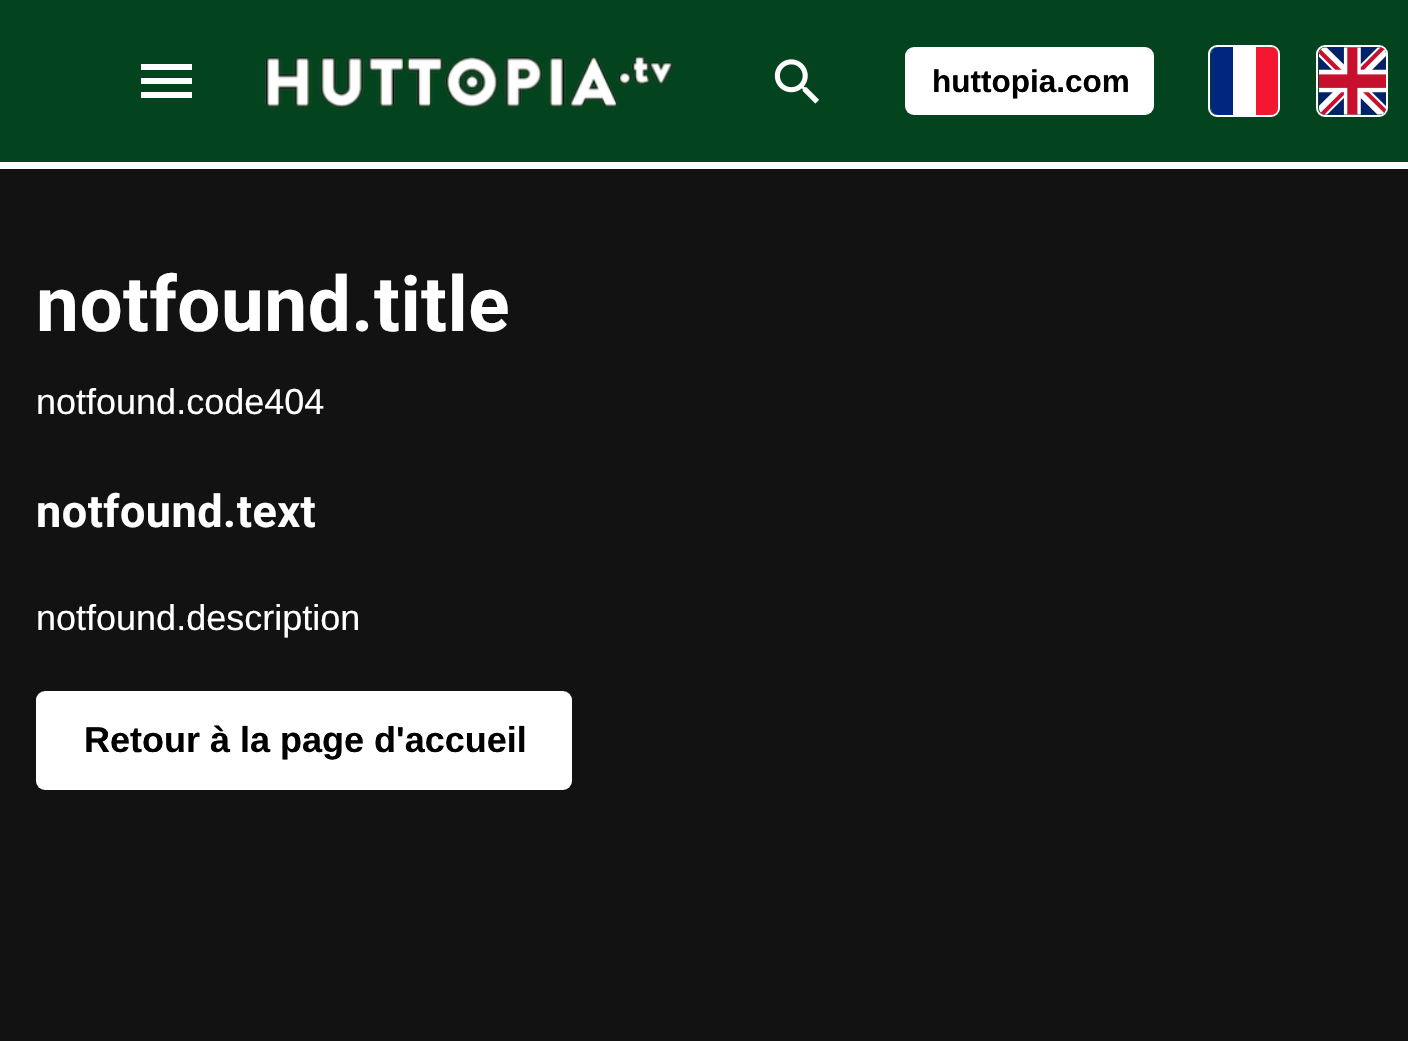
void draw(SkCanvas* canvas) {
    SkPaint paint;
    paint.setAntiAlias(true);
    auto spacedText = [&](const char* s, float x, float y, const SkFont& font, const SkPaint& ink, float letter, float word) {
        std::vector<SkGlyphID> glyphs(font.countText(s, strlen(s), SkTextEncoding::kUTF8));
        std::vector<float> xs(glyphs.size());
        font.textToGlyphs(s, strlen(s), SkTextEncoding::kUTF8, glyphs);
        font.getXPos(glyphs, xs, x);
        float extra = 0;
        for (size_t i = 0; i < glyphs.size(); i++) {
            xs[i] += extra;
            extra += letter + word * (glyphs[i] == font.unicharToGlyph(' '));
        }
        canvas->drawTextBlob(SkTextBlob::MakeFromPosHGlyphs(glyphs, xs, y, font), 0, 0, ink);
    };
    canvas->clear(0xFF121212);
    paint.setColor(0xFF03441F);
    canvas->drawRect(SkRect::MakeXYWH(0, 0, 1408, 162), paint);
    paint.setColor(0xFFFFFFFF);
    canvas->drawRect(SkRect::MakeXYWH(0, 162, 1408, 7), paint);
    canvas->drawPath(SkPathBuilder().moveTo(141, 64).lineTo(192, 64).lineTo(192, 70).lineTo(141, 70).lineTo(141, 64).moveTo(141, 78).lineTo(192, 78).lineTo(192, 84).lineTo(141, 84).lineTo(141, 78).moveTo(141, 92).lineTo(192, 92).lineTo(192, 98).lineTo(141, 98).close().detach(), paint);
    canvas->drawImageRect(SkImages::DeferredFromEncodedData(SkData::MakeFromFileName("img1.png")), SkRect::MakeXYWH(265, 54, 409, 55), SkSamplingOptions());
    canvas->drawImageRect(SkImages::DeferredFromEncodedData(SkData::MakeFromFileName("img2.png")), SkRect::MakeXYWH(774, 59, 45, 45), SkSamplingOptions());
    canvas->drawRoundRect(SkRect::MakeXYWH(905, 47, 249, 68), 9, 9, paint);
    SkFont font1(fontMgr->matchFamilyStyle("Liberation Sans", SkFontStyle::Bold()), 31.5f);
    font1.setSubpixel(true);
    paint.setColor(0xFF000000);
    canvas->drawString("huttopia.com", 932, 92, font1, paint);
    paint.setStyle(SkPaint::kStroke_Style);
    paint.setStrokeWidth(2);
    paint.setColor(0xFFFFFFFF);
    canvas->drawRoundRect(SkRect::MakeXYWH(1209, 46, 70, 70), 8, 8, paint);
    paint.setStyle(SkPaint::kFill_Style);
    canvas->drawRoundRect(SkRect::MakeXYWH(1211, 47, 67, 68), 7, 7, paint);
    paint.setColor(0xFF00267F);
    canvas->drawPath(SkPathBuilder().moveTo(1218, 47).lineTo(1233, 47).lineTo(1233, 115).lineTo(1218, 115).cubicTo(1214, 115, 1211, 112, 1211, 108).lineTo(1211, 54).cubicTo(1211, 50, 1214, 47, 1218, 47).close().detach(), paint);
    paint.setColor(0xFFF31830);
    canvas->drawPath(SkPathBuilder().moveTo(1256, 47).lineTo(1271, 47).cubicTo(1275, 47, 1278, 50, 1278, 54).lineTo(1278, 108).cubicTo(1278, 112, 1275, 115, 1271, 115).lineTo(1256, 115).close().detach(), paint);
    paint.setStyle(SkPaint::kStroke_Style);
    paint.setColor(0xFFFFFFFF);
    canvas->drawRoundRect(SkRect::MakeXYWH(1317, 46, 70, 70), 8, 8, paint);
    canvas->drawImageRect(SkImages::DeferredFromEncodedData(SkData::MakeFromFileName("img3.png")), SkRect::MakeXYWH(1319, 47, 67, 68), SkSamplingOptions());
    SkFont font2(fontMgr->matchFamilyStyle("Roboto", SkFontStyle::Bold()), 76.5f);
    font2.setSubpixel(true);
    paint.setStyle(SkPaint::kFill_Style);
    spacedText("notfound.title", 36, 331, font2, paint, 0.5f, 0);
    SkFont font3(fontMgr->matchFamilyStyle("Liberation Sans", SkFontStyle::Normal()), 36);
    font3.setSubpixel(true);
    canvas->drawString("notfound.code404", 36, 414, font3, paint);
    SkFont font4(fontMgr->matchFamilyStyle("Roboto", SkFontStyle::Bold()), 45);
    font4.setSubpixel(true);
    spacedText("notfound.text", 36, 527, font4, paint, 0.5f, 0);
    canvas->drawString("notfound.description", 36, 630, font3, paint);
    canvas->drawRoundRect(SkRect::MakeXYWH(36, 691, 536, 99), 9, 9, paint);
    SkFont font5(fontMgr->matchFamilyStyle("Liberation Sans", SkFontStyle::Bold()), 36);
    font5.setSubpixel(true);
    paint.setColor(0xFF000000);
    canvas->drawString("Retour à la page d'accueil", 84, 752, font5, paint);
}
